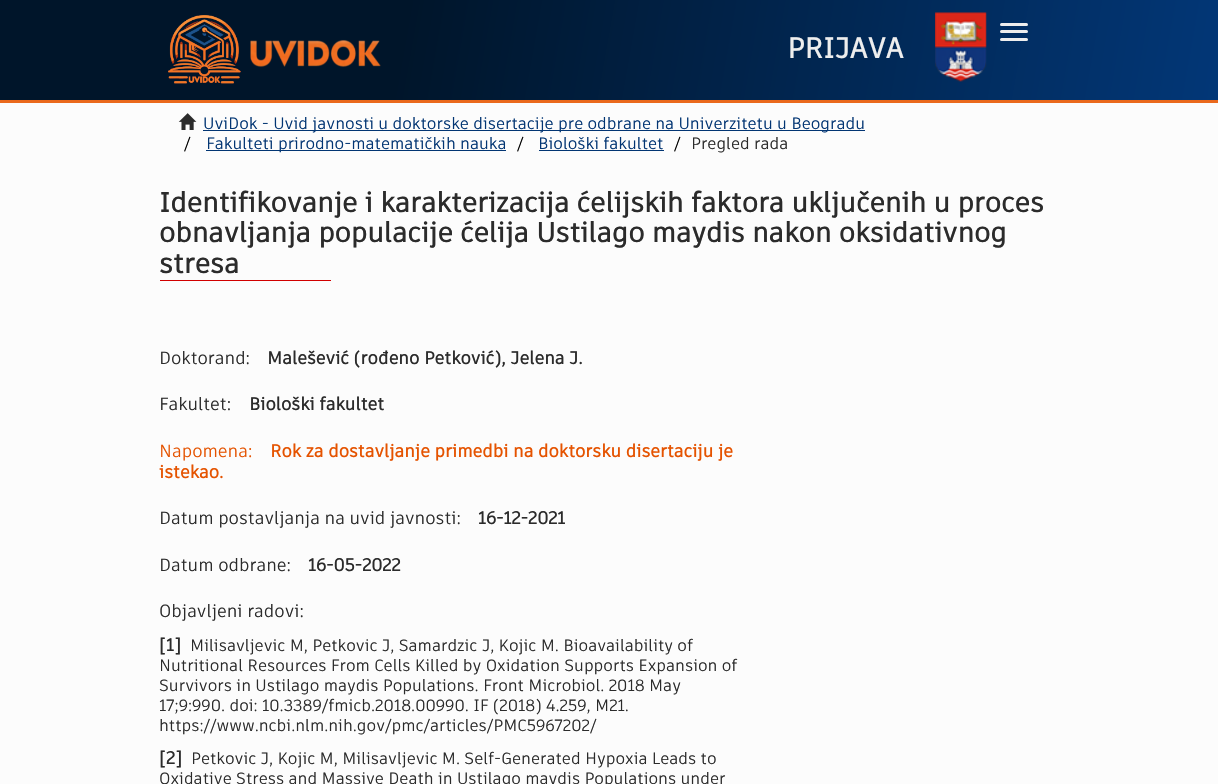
void draw(SkCanvas* canvas) {
    SkPaint paint;
    paint.setAntiAlias(true);
    canvas->clear(0xFFFCFCFC);
    {
        const SkColor colors[] = {0xFF00152A, 0xFF023777};
        const float stops[] = {0.33f, 1};
        const SkPoint ends[] = {{10, -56}, {1209, 156}};
        paint.setShader(SkGradientShader::MakeLinear(ends, colors, stops, 2, SkTileMode::kClamp));
        paint.setAlpha(255);
    }
    canvas->drawRect(SkRect::MakeXYWH(0, 0, 1218, 100), paint);
    canvas->drawImageRect(SkImages::DeferredFromEncodedData(SkData::MakeFromFileName("img1.png")), SkRect::MakeXYWH(168, 15, 213, 69), SkSamplingOptions());
    canvas->drawImageRect(SkImages::DeferredFromEncodedData(SkData::MakeFromFileName("img2.png")), SkRect::MakeXYWH(935, 12, 52, 70), SkSamplingOptions());
    paint.setShader(nullptr);
    paint.setColor(0xFFEEEEEE);
    canvas->drawRoundRect(SkRect::MakeXYWH(1000, 23, 28, 3), 1.5f, 1.5f, paint);
    canvas->drawRoundRect(SkRect::MakeXYWH(1000, 30, 28, 3), 1.5f, 1.5f, paint);
    canvas->drawRoundRect(SkRect::MakeXYWH(1000, 38, 28, 3), 1.5f, 1.5f, paint);
    SkFont font1(fontMgr->matchFamilyStyle("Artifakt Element", SkFontStyle::Bold()), 28.5f);
    font1.setSubpixel(true);
    canvas->drawString("PRIJAVA", 787, 58, font1, paint);
    paint.setColor(0xFFEA691D);
    canvas->drawRect(SkRect::MakeXYWH(0, 100, 1218, 3), paint);
    canvas->drawImageRect(SkImages::DeferredFromEncodedData(SkData::MakeFromFileName("img3.png")), SkRect::MakeXYWH(178, 113, 19, 17), SkSamplingOptions());
    paint.setColor(0xFF023573);
    canvas->drawRect(SkRect::MakeXYWH(203, 130, 662, 1), paint);
    SkFont font2(fontMgr->matchFamilyStyle("Artifakt Element", SkFontStyle::Normal()), 16.25f);
    font2.setSubpixel(true);
    canvas->drawString("UviDok - Uvid javnosti u doktorske disertacije pre odbrane na Univerzitetu u Beogradu", 203, 129, font2, paint);
    paint.setColor(0xFF000000);
    canvas->drawString("/", 184, 149, font2, paint);
    paint.setColor(0xFF023573);
    canvas->drawRect(SkRect::MakeXYWH(206, 150, 300, 1), paint);
    canvas->drawString("Fakulteti prirodno-matematičkih nauka", 206, 149, font2, paint);
    paint.setColor(0xFF000000);
    canvas->drawString("/", 517, 149, font2, paint);
    paint.setColor(0xFF023573);
    canvas->drawString("Biološki fakultet", 538, 149, font2, paint);
    canvas->drawRect(SkRect::MakeXYWH(539, 150, 125, 1), paint);
    paint.setColor(0xFF000000);
    canvas->drawString("/", 674, 149, font2, paint);
    paint.setColor(0xFF2B2B2B);
    canvas->drawString("Pregled rada", 691, 149, font2, paint);
    SkFont font3(fontMgr->matchFamilyStyle("Artifakt Element", SkFontStyle::Bold()), 27.5f);
    font3.setSubpixel(true);
    canvas->drawString("Identifikovanje i karakterizacija ćelijskih faktora uključenih u proces", 159, 212, font3, paint);
    canvas->drawString("obnavljanja populacije ćelija Ustilago maydis nakon oksidativnog", 159, 242, font3, paint);
    canvas->drawString("stresa", 159, 273, font3, paint);
    {
        const SkColor colors[] = {0xFFD10000, 0xFFFCFCFC};
        const float stops[] = {0.19f, 0.19f};
        const SkPoint ends[] = {{173, 204}, {1047, 358}};
        paint.setShader(SkGradientShader::MakeLinear(ends, colors, stops, 2, SkTileMode::kClamp));
        paint.setAlpha(255);
    }
    canvas->drawRect(SkRect::MakeXYWH(160, 280, 171, 1), paint);
    SkFont font4(fontMgr->matchFamilyStyle("Artifakt Element", SkFontStyle::Normal()), 17.5f);
    font4.setSubpixel(true);
    paint.setShader(nullptr);
    paint.setColor(0xFF2B2B2B);
    canvas->drawString("Doktorand:", 159, 364, font4, paint);
    SkFont font5(fontMgr->matchFamilyStyle("Artifakt Element", SkFontStyle::Bold()), 17.5f);
    font5.setSubpixel(true);
    canvas->drawString("Malešević (rođeno Petković), Jelena J.", 267, 364, font5, paint);
    canvas->drawString("Fakultet:", 159, 410, font4, paint);
    canvas->drawString("Biološki fakultet", 249, 410, font5, paint);
    paint.setColor(0xFFE55300);
    canvas->drawString("Napomena:", 159, 457, font4, paint);
    canvas->drawString("Rok za dostavljanje primedbi na doktorsku disertaciju je", 270, 457, font5, paint);
    canvas->drawString("istekao.", 159, 478, font5, paint);
    paint.setColor(0xFF2B2B2B);
    canvas->drawString("Datum postavljanja na uvid javnosti:", 159, 524, font4, paint);
    canvas->drawString("16-12-2021", 478, 524, font5, paint);
    canvas->drawString("Datum odbrane:", 159, 571, font4, paint);
    canvas->drawString("16-05-2022", 308, 571, font5, paint);
    canvas->drawString("Objavljeni radovi:", 159, 617, font4, paint);
    canvas->drawString("[1]", 159, 651, font5, paint);
    canvas->drawString("Milisavljevic M, Petkovic J, Samardzic J, Kojic M. Bioavailability of", 190, 651, font2, paint);
    canvas->drawString("Nutritional Resources From Cells Killed by Oxidation Supports Expansion of", 159, 671, font2, paint);
    canvas->drawString("Survivors in Ustilago maydis Populations. Front Microbiol. 2018 May", 159, 691, font2, paint);
    canvas->drawString("17;9:990. doi: 10.3389/fmicb.2018.00990. IF (2018) 4.259, М21.", 159, 711, font2, paint);
    canvas->drawString("https://www.ncbi.nlm.nih.gov/pmc/articles/PMC5967202/", 159, 731, font2, paint);
    canvas->drawString("[2]", 159, 764, font5, paint);
    canvas->drawString("Petkovic J, Kojic M, Milisavljevic M. Self-Generated Hypoxia Leads to", 191, 764, font2, paint);
    canvas->drawString("Oxidative Stress and Massive Death in Ustilago maydis Populations under", 159, 784, font2, paint);
}
